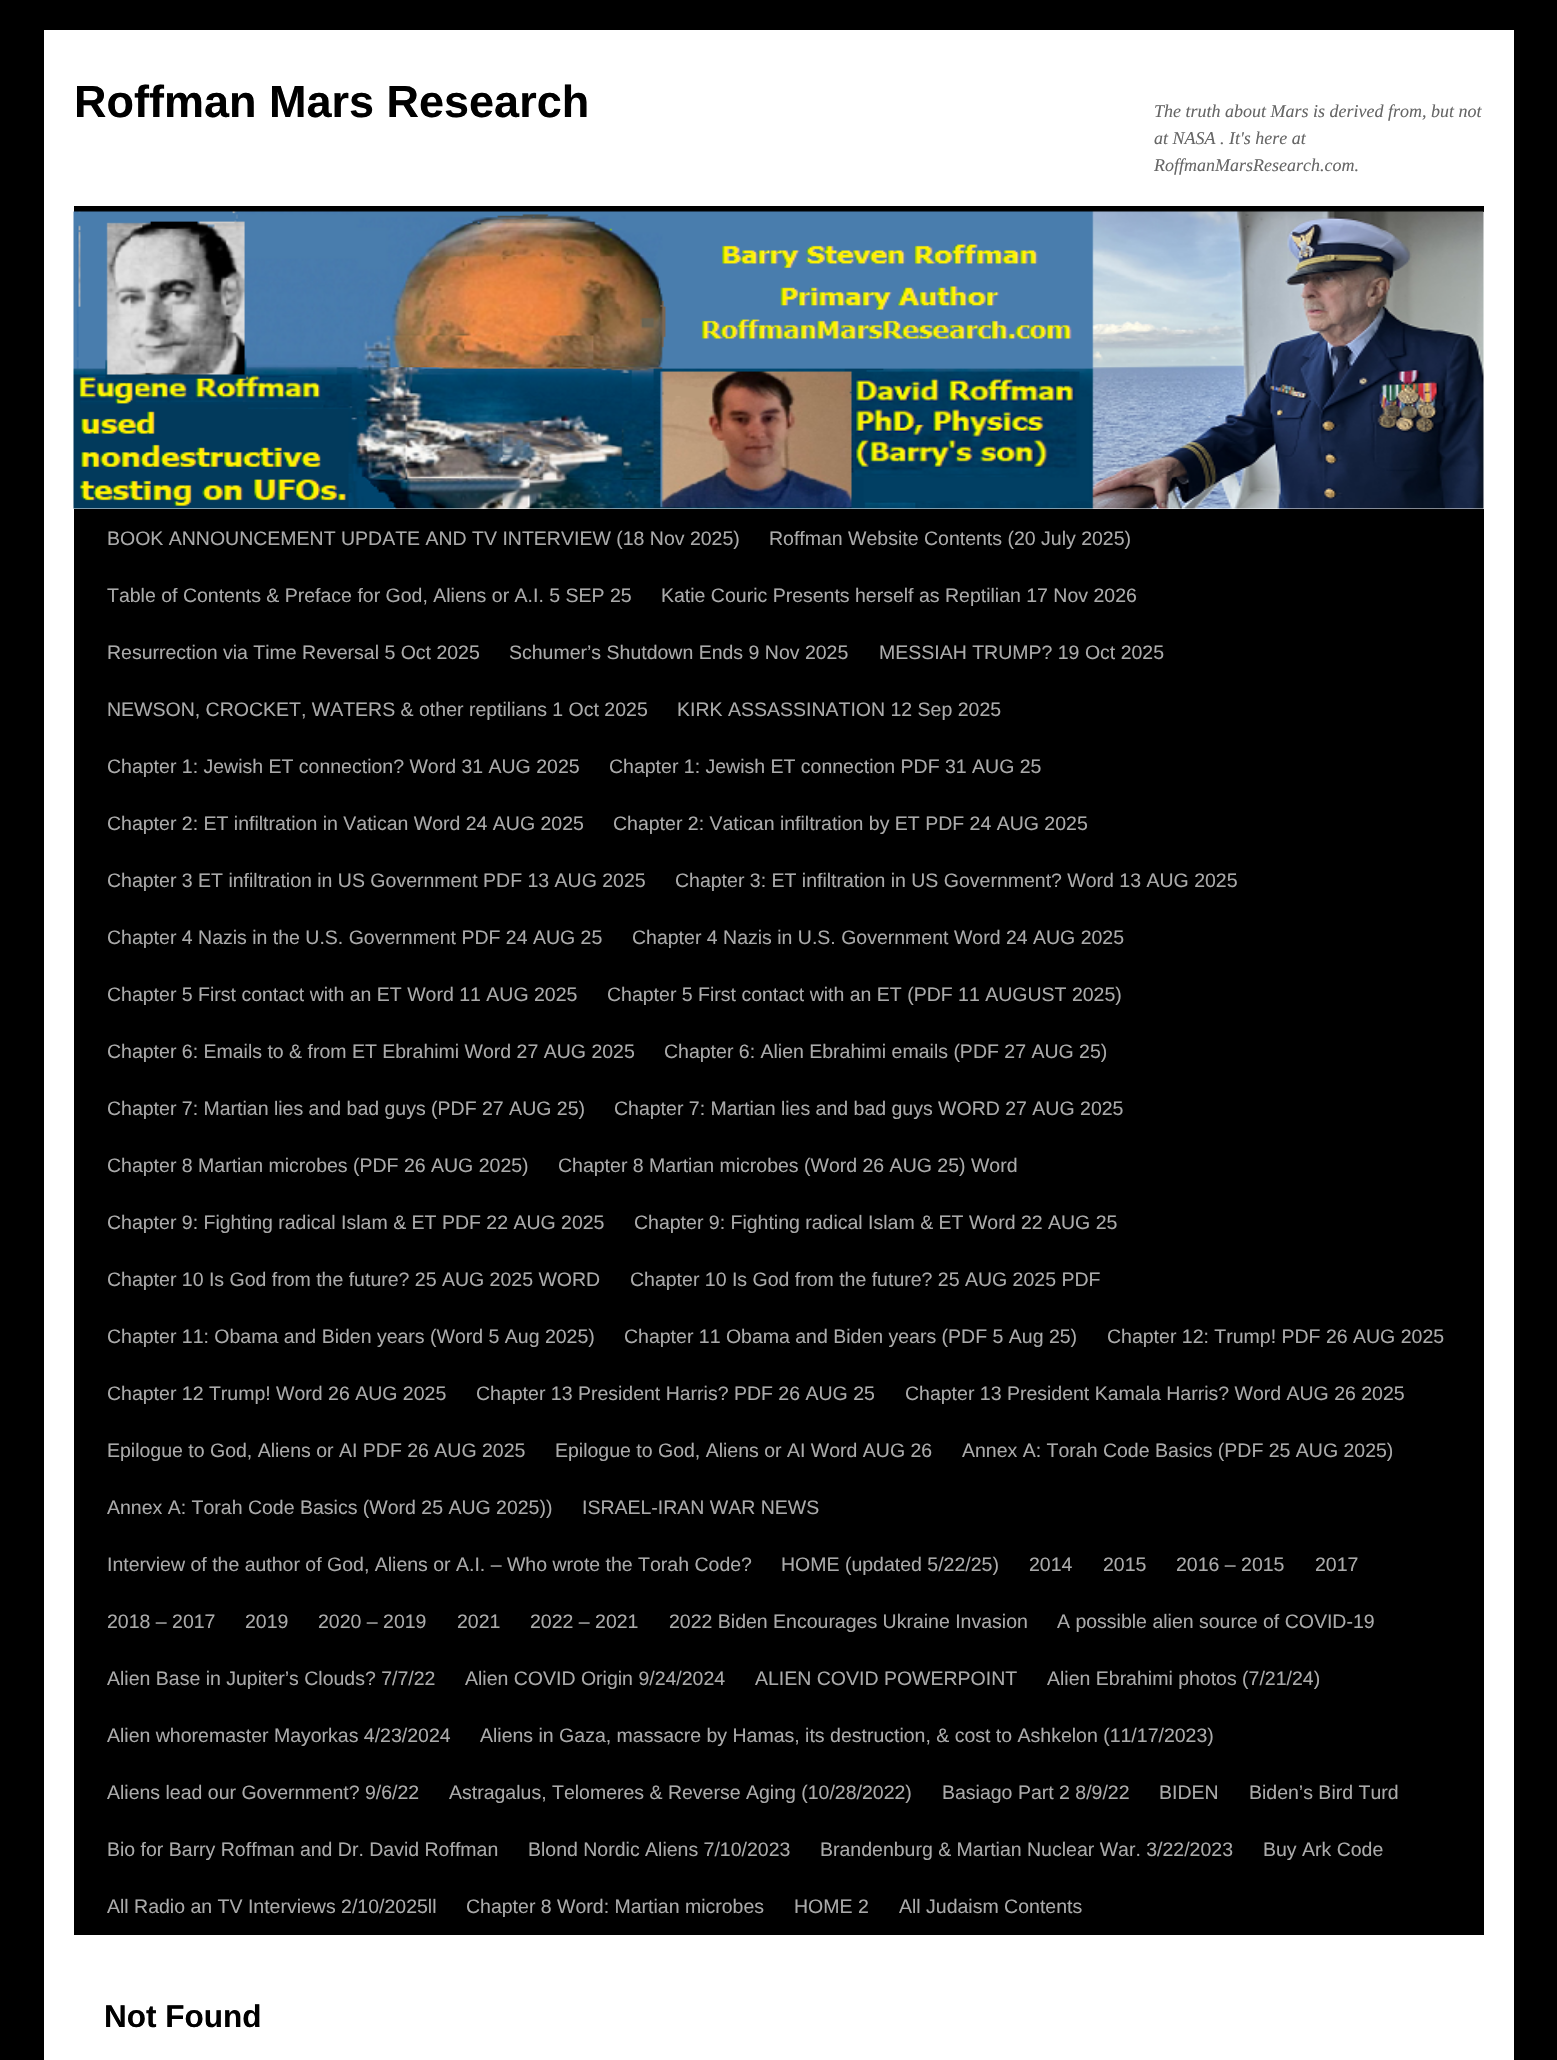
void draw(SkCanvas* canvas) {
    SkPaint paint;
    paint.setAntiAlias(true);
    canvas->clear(0xFF000000);
    paint.setColor(0xFFFFFFFF);
    canvas->drawRect(SkRect::MakeXYWH(44, 30, 1470, 2030), paint);
    SkFont font1(fontMgr->matchFamilyStyle("Liberation Sans", SkFontStyle::Bold()), 45);
    font1.setSubpixel(true);
    paint.setColor(0xFF000000);
    canvas->drawString("Roffman Mars Research", 74, 117, font1, paint);
    SkFont font2(fontMgr->matchFamilyStyle("Liberation Serif", SkFontStyle::Italic()), 18);
    font2.setSubpixel(true);
    paint.setColor(0xFF666666);
    canvas->drawString("The truth about Mars is derived from, but not", 1154, 117, font2, paint);
    canvas->drawString("at NASA . It's here at", 1154, 144, font2, paint);
    canvas->drawString("RoffmanMarsResearch.com.", 1154, 171, font2, paint);
    paint.setColor(0xFF000000);
    canvas->drawRect(SkRect::MakeXYWH(74, 206, 1410, 6), paint);
    canvas->drawRect(SkRect::MakeXYWH(74, 509, 1410, 1426), paint);
    canvas->drawImageRect(SkImages::DeferredFromEncodedData(SkData::MakeFromFileName("img1.png")), SkRect::MakeXYWH(73, 211, 1411, 298), SkSamplingOptions());
    SkFont font3(fontMgr->matchFamilyStyle("Liberation Sans", SkFontStyle::Normal()), 19.5f);
    font3.setSubpixel(true);
    paint.setColor(0xFFAAAAAA);
    canvas->drawString("BOOK ANNOUNCEMENT UPDATE AND TV INTERVIEW (18 Nov 2025)", 107, 545, font3, paint);
    canvas->drawString("Roffman Website Contents (20 July 2025)", 769, 545, font3, paint);
    canvas->drawString("Table of Contents & Preface for God, Aliens or A.I. 5 SEP 25", 107, 602, font3, paint);
    canvas->drawString("Katie Couric Presents herself as Reptilian 17 Nov 2026", 661, 602, font3, paint);
    canvas->drawString("Resurrection via Time Reversal 5 Oct 2025", 107, 659, font3, paint);
    canvas->drawString("Schumer’s Shutdown Ends 9 Nov 2025", 509, 659, font3, paint);
    canvas->drawString("MESSIAH TRUMP? 19 Oct 2025", 879, 659, font3, paint);
    canvas->drawString("NEWSON, CROCKET, WATERS & other reptilians 1 Oct 2025", 107, 716, font3, paint);
    canvas->drawString("KIRK ASSASSINATION 12 Sep 2025", 677, 716, font3, paint);
    canvas->drawString("Chapter 1: Jewish ET connection? Word 31 AUG 2025", 107, 773, font3, paint);
    canvas->drawString("Chapter 1: Jewish ET connection PDF 31 AUG 25", 609, 773, font3, paint);
    canvas->drawString("Chapter 2: ET infiltration in Vatican Word 24 AUG 2025", 107, 830, font3, paint);
    canvas->drawString("Chapter 2: Vatican infiltration by ET PDF 24 AUG 2025", 613, 830, font3, paint);
    canvas->drawString("Chapter 3 ET infiltration in US Government PDF 13 AUG 2025", 107, 887, font3, paint);
    canvas->drawString("Chapter 3: ET infiltration in US Government? Word 13 AUG 2025", 675, 887, font3, paint);
    canvas->drawString("Chapter 4 Nazis in the U.S. Government PDF 24 AUG 25", 107, 944, font3, paint);
    canvas->drawString("Chapter 4 Nazis in U.S. Government Word 24 AUG 2025", 632, 944, font3, paint);
    canvas->drawString("Chapter 5 First contact with an ET Word 11 AUG 2025", 107, 1001, font3, paint);
    canvas->drawString("Chapter 5 First contact with an ET (PDF 11 AUGUST 2025)", 607, 1001, font3, paint);
    canvas->drawString("Chapter 6: Emails to & from ET Ebrahimi Word 27 AUG 2025", 107, 1058, font3, paint);
    canvas->drawString("Chapter 6: Alien Ebrahimi emails (PDF 27 AUG 25)", 664, 1058, font3, paint);
    canvas->drawString("Chapter 7: Martian lies and bad guys (PDF 27 AUG 25)", 107, 1115, font3, paint);
    canvas->drawString("Chapter 7: Martian lies and bad guys WORD 27 AUG 2025", 614, 1115, font3, paint);
    canvas->drawString("Chapter 8 Martian microbes (PDF 26 AUG 2025)", 107, 1172, font3, paint);
    canvas->drawString("Chapter 8 Martian microbes (Word 26 AUG 25) Word", 558, 1172, font3, paint);
    canvas->drawString("Chapter 9: Fighting radical Islam & ET PDF 22 AUG 2025", 107, 1229, font3, paint);
    canvas->drawString("Chapter 9: Fighting radical Islam & ET Word 22 AUG 25", 634, 1229, font3, paint);
    canvas->drawString("Chapter 10 Is God from the future? 25 AUG 2025 WORD", 107, 1286, font3, paint);
    canvas->drawString("Chapter 10 Is God from the future? 25 AUG 2025 PDF", 630, 1286, font3, paint);
    canvas->drawString("Chapter 11: Obama and Biden years (Word 5 Aug 2025)", 107, 1343, font3, paint);
    canvas->drawString("Chapter 11 Obama and Biden years (PDF 5 Aug 25)", 624, 1343, font3, paint);
    canvas->drawString("Chapter 12: Trump! PDF 26 AUG 2025", 1107, 1343, font3, paint);
    canvas->drawString("Chapter 12 Trump! Word 26 AUG 2025", 107, 1400, font3, paint);
    canvas->drawString("Chapter 13 President Harris? PDF 26 AUG 25", 476, 1400, font3, paint);
    canvas->drawString("Chapter 13 President Kamala Harris? Word AUG 26 2025", 905, 1400, font3, paint);
    canvas->drawString("Epilogue to God, Aliens or AI PDF 26 AUG 2025", 107, 1457, font3, paint);
    canvas->drawString("Epilogue to God, Aliens or AI Word AUG 26", 555, 1457, font3, paint);
    canvas->drawString("Annex A: Torah Code Basics (PDF 25 AUG 2025)", 962, 1457, font3, paint);
    canvas->drawString("Annex A: Torah Code Basics (Word 25 AUG 2025))", 107, 1514, font3, paint);
    canvas->drawString("ISRAEL-IRAN WAR NEWS", 582, 1514, font3, paint);
    canvas->drawString("Interview of the author of God, Aliens or A.I. – Who wrote the Torah Code?", 107, 1571, font3, paint);
    canvas->drawString("HOME (updated 5/22/25)", 781, 1571, font3, paint);
    canvas->drawString("2014", 1029, 1571, font3, paint);
    canvas->drawString("2015", 1103, 1571, font3, paint);
    canvas->drawString("2016 – 2015", 1176, 1571, font3, paint);
    canvas->drawString("2017", 1315, 1571, font3, paint);
    canvas->drawString("2018 – 2017", 107, 1628, font3, paint);
    canvas->drawString("2019", 245, 1628, font3, paint);
    canvas->drawString("2020 – 2019", 318, 1628, font3, paint);
    canvas->drawString("2021", 457, 1628, font3, paint);
    canvas->drawString("2022 – 2021", 530, 1628, font3, paint);
    canvas->drawString("2022 Biden Encourages Ukraine Invasion", 669, 1628, font3, paint);
    canvas->drawString("A possible alien source of COVID-19", 1057, 1628, font3, paint);
    canvas->drawString("Alien Base in Jupiter’s Clouds? 7/7/22", 107, 1685, font3, paint);
    canvas->drawString("Alien COVID Origin 9/24/2024", 465, 1685, font3, paint);
    canvas->drawString("ALIEN COVID POWERPOINT", 755, 1685, font3, paint);
    canvas->drawString("Alien Ebrahimi photos (7/21/24)", 1047, 1685, font3, paint);
    canvas->drawString("Alien whoremaster Mayorkas 4/23/2024", 107, 1742, font3, paint);
    canvas->drawString("Aliens in Gaza, massacre by Hamas, its destruction, & cost to Ashkelon (11/17/2023)", 480, 1742, font3, paint);
    canvas->drawString("Aliens lead our Government? 9/6/22", 107, 1799, font3, paint);
    canvas->drawString("Astragalus, Telomeres & Reverse Aging (10/28/2022)", 449, 1799, font3, paint);
    canvas->drawString("Basiago Part 2 8/9/22", 942, 1799, font3, paint);
    canvas->drawString("BIDEN", 1159, 1799, font3, paint);
    canvas->drawString("Biden’s Bird Turd", 1249, 1799, font3, paint);
    canvas->drawString("Bio for Barry Roffman and Dr. David Roffman", 107, 1856, font3, paint);
    canvas->drawString("Blond Nordic Aliens 7/10/2023", 528, 1856, font3, paint);
    canvas->drawString("Brandenburg & Martian Nuclear War. 3/22/2023", 820, 1856, font3, paint);
    canvas->drawString("Buy Ark Code", 1263, 1856, font3, paint);
    canvas->drawString("All Radio an TV Interviews 2/10/2025ll", 107, 1913, font3, paint);
    canvas->drawString("Chapter 8 Word: Martian microbes", 466, 1913, font3, paint);
    canvas->drawString("HOME 2", 794, 1913, font3, paint);
    canvas->drawString("All Judaism Contents", 899, 1913, font3, paint);
    SkFont font4(fontMgr->matchFamilyStyle("Liberation Sans", SkFontStyle::Bold()), 31.5f);
    font4.setSubpixel(true);
    paint.setColor(0xFF000000);
    canvas->drawString("Not Found", 104, 2027, font4, paint);
}
